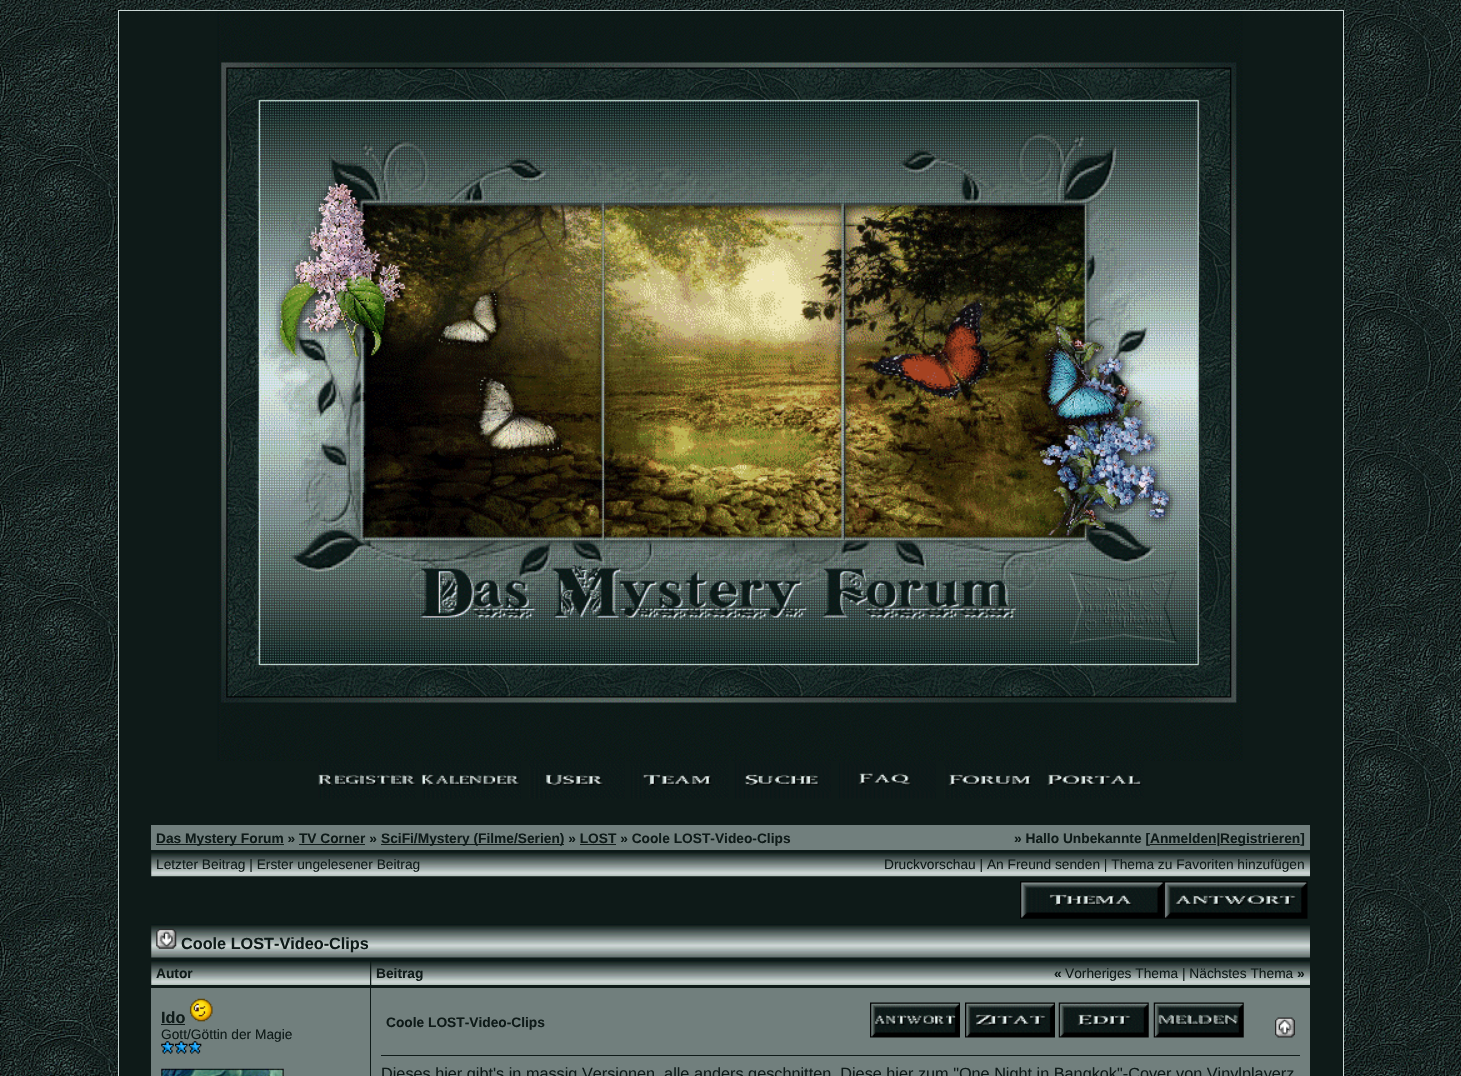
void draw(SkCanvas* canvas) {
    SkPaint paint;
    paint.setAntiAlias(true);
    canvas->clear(0xFFFFFFFF);
    canvas->drawImageRect(SkImages::DeferredFromEncodedData(SkData::MakeFromFileName("img1.png")), SkRect::MakeXYWH(0, 0, 1461, 1076), SkSamplingOptions());
    paint.setColor(0xFFCBD7D5);
    canvas->drawRect(SkRect::MakeXYWH(118, 10, 1226, 1066), paint);
    paint.setColor(0xFF0E1A18);
    canvas->drawRect(SkRect::MakeXYWH(119, 11, 1224, 1065), paint);
    canvas->drawImageRect(SkImages::DeferredFromEncodedData(SkData::MakeFromFileName("img2.png")), SkRect::MakeXYWH(217, 11, 1026, 750), SkSamplingOptions());
    canvas->drawImageRect(SkImages::DeferredFromEncodedData(SkData::MakeFromFileName("img3.png")), SkRect::MakeXYWH(318, 761, 98, 38), SkSamplingOptions());
    canvas->drawImageRect(SkImages::DeferredFromEncodedData(SkData::MakeFromFileName("img4.png")), SkRect::MakeXYWH(422, 761, 99, 38), SkSamplingOptions());
    canvas->drawImageRect(SkImages::DeferredFromEncodedData(SkData::MakeFromFileName("img5.png")), SkRect::MakeXYWH(529, 761, 96, 38), SkSamplingOptions());
    canvas->drawImageRect(SkImages::DeferredFromEncodedData(SkData::MakeFromFileName("img6.png")), SkRect::MakeXYWH(630, 761, 99, 38), SkSamplingOptions());
    canvas->drawImageRect(SkImages::DeferredFromEncodedData(SkData::MakeFromFileName("img7.png")), SkRect::MakeXYWH(734, 761, 97, 38), SkSamplingOptions());
    canvas->drawImageRect(SkImages::DeferredFromEncodedData(SkData::MakeFromFileName("img8.png")), SkRect::MakeXYWH(839, 761, 97, 38), SkSamplingOptions());
    canvas->drawImageRect(SkImages::DeferredFromEncodedData(SkData::MakeFromFileName("img9.png")), SkRect::MakeXYWH(944, 761, 96, 38), SkSamplingOptions());
    canvas->drawImageRect(SkImages::DeferredFromEncodedData(SkData::MakeFromFileName("img10.png")), SkRect::MakeXYWH(1045, 761, 99, 38), SkSamplingOptions());
    paint.setColor(0xFF717F7D);
    canvas->drawRect(SkRect::MakeXYWH(151, 825, 1159, 25), paint);
    paint.setColor(0xFF0E1A18);
    canvas->drawRect(SkRect::MakeXYWH(156, 844, 128, 1), paint);
    SkFont font1(fontMgr->matchFamilyStyle("Liberation Sans", SkFontStyle::Bold()), 13.75f);
    font1.setSubpixel(true);
    canvas->drawString("Das Mystery Forum » TV Corner »", 156, 843, font1, paint);
    canvas->drawRect(SkRect::MakeXYWH(299, 844, 66, 1), paint);
    canvas->drawRect(SkRect::MakeXYWH(381, 844, 183, 1), paint);
    canvas->drawString("SciFi/Mystery (Filme/Serien) » LOST » Coole LOST-Video-Clips", 381, 843, font1, paint);
    canvas->drawRect(SkRect::MakeXYWH(580, 844, 36, 1), paint);
    canvas->drawString("» Hallo Unbekannte [Anmelden|", 1014, 843, font1, paint);
    canvas->drawRect(SkRect::MakeXYWH(1150, 844, 66, 1), paint);
    canvas->drawRect(SkRect::MakeXYWH(1220, 844, 80, 1), paint);
    canvas->drawString("Registrieren]", 1220, 843, font1, paint);
    canvas->drawImageRect(SkImages::DeferredFromEncodedData(SkData::MakeFromFileName("img11.png")), SkRect::MakeXYWH(151, 851, 1159, 26), SkSamplingOptions());
    SkFont font2(fontMgr->matchFamilyStyle("Liberation Sans", SkFontStyle::Normal()), 13.75f);
    font2.setSubpixel(true);
    canvas->drawString("Letzter Beitrag | Erster ungelesener Beitrag", 156, 869, font2, paint);
    canvas->drawString("Druckvorschau | An Freund senden | Thema zu Favoriten hinzufügen", 884, 869, font2, paint);
    canvas->drawImageRect(SkImages::DeferredFromEncodedData(SkData::MakeFromFileName("img12.png")), SkRect::MakeXYWH(1020, 881, 144, 38), SkSamplingOptions());
    canvas->drawImageRect(SkImages::DeferredFromEncodedData(SkData::MakeFromFileName("img13.png")), SkRect::MakeXYWH(1164, 881, 144, 38), SkSamplingOptions());
    canvas->drawImageRect(SkImages::DeferredFromEncodedData(SkData::MakeFromFileName("img14.png")), SkRect::MakeXYWH(151, 924, 1159, 34), SkSamplingOptions());
    canvas->drawImageRect(SkImages::DeferredFromEncodedData(SkData::MakeFromFileName("img15.png")), SkRect::MakeXYWH(156, 928, 21, 21), SkSamplingOptions());
    SkFont font3(fontMgr->matchFamilyStyle("Liberation Sans", SkFontStyle::Bold()), 16.25f);
    font3.setSubpixel(true);
    canvas->drawString("Coole LOST-Video-Clips", 181, 949, font3, paint);
    canvas->drawImageRect(SkImages::DeferredFromEncodedData(SkData::MakeFromFileName("img16.png")), SkRect::MakeXYWH(151, 960, 219, 25), SkSamplingOptions());
    canvas->drawString("Autor", 156, 978, font1, paint);
    canvas->drawImageRect(SkImages::DeferredFromEncodedData(SkData::MakeFromFileName("img17.png")), SkRect::MakeXYWH(371, 960, 939, 25), SkSamplingOptions());
    canvas->drawString("Beitrag", 376, 978, font1, paint);
    canvas->drawString("«", 1054, 978, font1, paint);
    canvas->drawString("Vorheriges Thema | Nächstes Thema", 1065, 978, font2, paint);
    canvas->drawString("»", 1297, 978, font1, paint);
    paint.setColor(0xFF717F7D);
    canvas->drawRect(SkRect::MakeXYWH(151, 988, 219, 88), paint);
    paint.setColor(0xFF0E1A18);
    canvas->drawString("Ido", 161, 1023, font3, paint);
    canvas->drawRect(SkRect::MakeXYWH(161, 1024, 24, 1), paint);
    canvas->drawImageRect(SkImages::DeferredFromEncodedData(SkData::MakeFromFileName("img18.png")), SkRect::MakeXYWH(189, 998, 24, 24), SkSamplingOptions());
    canvas->drawString("Gott/Göttin der Magie", 161, 1039, font2, paint);
    canvas->drawImageRect(SkImages::DeferredFromEncodedData(SkData::MakeFromFileName("img19.png")), SkRect::MakeXYWH(161, 1041, 13, 13), SkSamplingOptions());
    canvas->drawImageRect(SkImages::DeferredFromEncodedData(SkData::MakeFromFileName("img20.png")), SkRect::MakeXYWH(175, 1041, 13, 13), SkSamplingOptions());
    canvas->drawImageRect(SkImages::DeferredFromEncodedData(SkData::MakeFromFileName("img21.png")), SkRect::MakeXYWH(188, 1041, 14, 13), SkSamplingOptions());
    canvas->drawImageRect(SkImages::DeferredFromEncodedData(SkData::MakeFromFileName("img22.png")), SkRect::MakeXYWH(161, 1068, 123, 8), SkSamplingOptions());
    paint.setColor(0xFF717F7D);
    canvas->drawRect(SkRect::MakeXYWH(371, 988, 939, 88), paint);
    paint.setColor(0xFF0E1A18);
    canvas->drawString("Coole LOST-Video-Clips", 386, 1027, font1, paint);
    canvas->drawImageRect(SkImages::DeferredFromEncodedData(SkData::MakeFromFileName("img23.png")), SkRect::MakeXYWH(870, 1002, 90, 36), SkSamplingOptions());
    canvas->drawImageRect(SkImages::DeferredFromEncodedData(SkData::MakeFromFileName("img24.png")), SkRect::MakeXYWH(965, 1002, 90, 36), SkSamplingOptions());
    canvas->drawImageRect(SkImages::DeferredFromEncodedData(SkData::MakeFromFileName("img25.png")), SkRect::MakeXYWH(1058, 1002, 91, 36), SkSamplingOptions());
    canvas->drawImageRect(SkImages::DeferredFromEncodedData(SkData::MakeFromFileName("img26.png")), SkRect::MakeXYWH(1153, 1002, 91, 36), SkSamplingOptions());
    canvas->drawImageRect(SkImages::DeferredFromEncodedData(SkData::MakeFromFileName("img27.png")), SkRect::MakeXYWH(1275, 1017, 20, 21), SkSamplingOptions());
    canvas->drawRect(SkRect::MakeXYWH(381, 1055, 919, 1), paint);
    SkFont font4(fontMgr->matchFamilyStyle("Liberation Sans", SkFontStyle::Normal()), 16.25f);
    font4.setSubpixel(true);
    canvas->drawString("Dieses hier gibt's in massig Versionen, alle anders geschnitten. Diese hier zum \"One Night in Bangkok\"-Cover von Vinylplayerz", 381, 1079, font4, paint);
}
